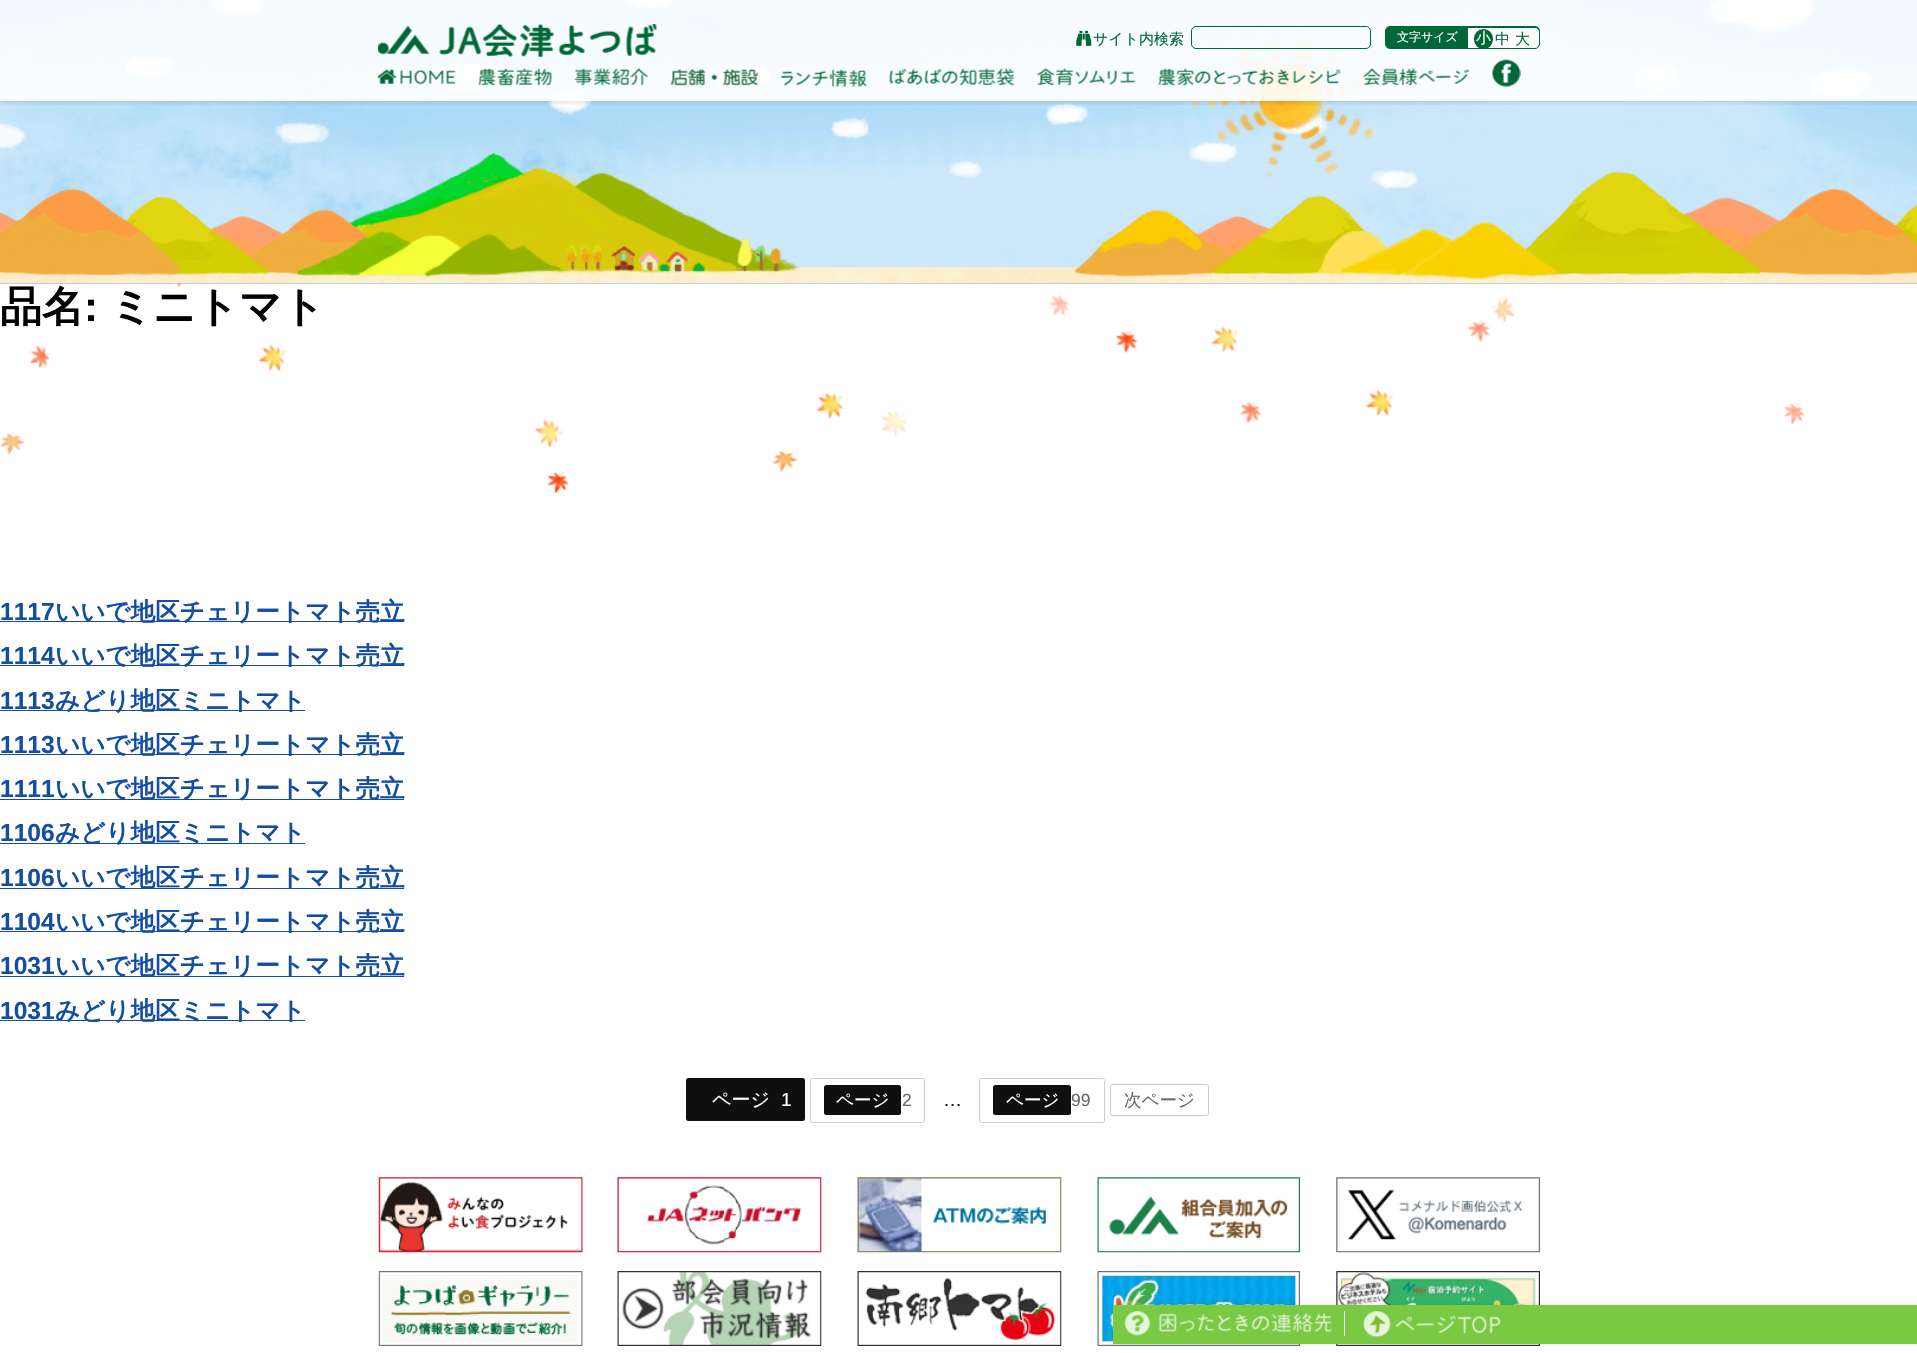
void draw(SkCanvas* canvas) {
    SkPaint paint;
    paint.setAntiAlias(true);
    auto spacedText = [&](const char* s, float x, float y, const SkFont& font, const SkPaint& ink, float letter, float word) {
        std::vector<SkGlyphID> glyphs(font.countText(s, strlen(s), SkTextEncoding::kUTF8));
        std::vector<float> xs(glyphs.size());
        font.textToGlyphs(s, strlen(s), SkTextEncoding::kUTF8, glyphs);
        font.getXPos(glyphs, xs, x);
        float extra = 0;
        for (size_t i = 0; i < glyphs.size(); i++) {
            xs[i] += extra;
            extra += letter + word * (glyphs[i] == font.unicharToGlyph(' '));
        }
        canvas->drawTextBlob(SkTextBlob::MakeFromPosHGlyphs(glyphs, xs, y, font), 0, 0, ink);
    };
    canvas->clear(0xFFFFFFFF);
    paint.setColor(0xFF6BBAEE);
    canvas->drawRect(SkRect::MakeXYWH(0, 283, 1917, 1), paint);
    canvas->drawImageRect(SkImages::DeferredFromEncodedData(SkData::MakeFromFileName("img1.png")), SkRect::MakeXYWH(0, 0, 1917, 284), SkSamplingOptions());
    canvas->drawImageRect(SkImages::DeferredFromEncodedData(SkData::MakeFromFileName("img14.png")), SkRect::MakeXYWH(1191, 40, 187, 138), SkSamplingOptions());
    canvas->save();
    canvas->clipRect(SkRect::MakeXYWH(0, 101, 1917, 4));
    paint.setColor(0x1A000000);
    paint.setMaskFilter(SkMaskFilter::MakeBlur(kNormal_SkBlurStyle, 2));
    canvas->drawRect(SkRect::MakeXYWH(0, 1, 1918, 102), paint);
    paint.setMaskFilter(nullptr);
    canvas->restore();
    paint.setColor(0xE6FFFFFF);
    canvas->drawRect(SkRect::MakeXYWH(0, 0, 1917, 101), paint);
    canvas->drawImageRect(SkImages::DeferredFromEncodedData(SkData::MakeFromFileName("img2.png")), SkRect::MakeXYWH(378, 24, 279, 34), SkSamplingOptions());
    canvas->drawImageRect(SkImages::DeferredFromEncodedData(SkData::MakeFromFileName("img3.png")), SkRect::MakeXYWH(1076, 30, 16, 16), SkSamplingOptions());
    SkFont font1(fontMgr->matchFamilyStyle("WenQuanYi Zen Hei", SkFontStyle(500, SkFontStyle::kNormal_Width, SkFontStyle::kUpright_Slant)), 15);
    font1.setSubpixel(true);
    paint.setColor(0xFF006837);
    canvas->drawString("サイト内検索", 1093, 44, font1, paint);
    paint.setStyle(SkPaint::kStroke_Style);
    paint.setStrokeWidth(1);
    canvas->drawRoundRect(SkRect::MakeXYWH(1191.5f, 26.5f, 179, 22), 4.5f, 4.5f, paint);
    paint.setStyle(SkPaint::kFill_Style);
    canvas->drawRoundRect(SkRect::MakeXYWH(1385.5f, 26.5f, 154, 22), 4.5f, 4.5f, paint);
    paint.setStyle(SkPaint::kStroke_Style);
    canvas->drawRoundRect(SkRect::MakeXYWH(1385.5f, 26.5f, 154, 22), 4.5f, 4.5f, paint);
    SkFont font2(fontMgr->matchFamilyStyle("WenQuanYi Zen Hei", SkFontStyle(500, SkFontStyle::kNormal_Width, SkFontStyle::kUpright_Slant)), 12);
    font2.setSubpixel(true);
    paint.setStyle(SkPaint::kFill_Style);
    paint.setColor(0xFFFFFFFF);
    canvas->drawString("文字サイズ", 1397, 41, font2, paint);
    canvas->drawPath(SkPathBuilder().moveTo(1468, 28).lineTo(1535, 28).cubicTo(1537, 28, 1539, 30, 1539, 32).lineTo(1539, 44).cubicTo(1539, 46, 1537, 48, 1535, 48).lineTo(1468, 48).close().detach(), paint);
    canvas->save();
    canvas->clipPath(SkPathBuilder().moveTo(1390, 28).lineTo(1535, 28).cubicTo(1537, 28, 1539, 30, 1539, 32).lineTo(1539, 44).cubicTo(1539, 46, 1537, 48, 1535, 48).lineTo(1390, 48).cubicTo(1388, 48, 1386, 46, 1386, 44).lineTo(1386, 32).cubicTo(1386, 30, 1388, 28, 1390, 28).close().detach(), true);
    paint.setColor(0xFF006837);
    canvas->drawRoundRect(SkRect::MakeXYWH(1474, 29, 19, 20), 9.5f, 9.5f, paint);
    canvas->restore();
    paint.setColor(0xFFFFFFFF);
    spacedText("小", 1476, 43, font1, paint, -1, 0);
    paint.setColor(0xFF006837);
    canvas->drawString("中", 1495, 44, font1, paint);
    canvas->drawString("大", 1515, 44, font1, paint);
    canvas->drawImageRect(SkImages::DeferredFromEncodedData(SkData::MakeFromFileName("img4.png")), SkRect::MakeXYWH(378, 69, 78, 15), SkSamplingOptions());
    canvas->drawImageRect(SkImages::DeferredFromEncodedData(SkData::MakeFromFileName("img5.png")), SkRect::MakeXYWH(478, 68, 74, 18), SkSamplingOptions());
    canvas->drawImageRect(SkImages::DeferredFromEncodedData(SkData::MakeFromFileName("img6.png")), SkRect::MakeXYWH(574, 68, 74, 18), SkSamplingOptions());
    canvas->drawImageRect(SkImages::DeferredFromEncodedData(SkData::MakeFromFileName("img7.png")), SkRect::MakeXYWH(670, 68, 88, 18), SkSamplingOptions());
    canvas->drawImageRect(SkImages::DeferredFromEncodedData(SkData::MakeFromFileName("img8.png")), SkRect::MakeXYWH(780, 69, 87, 18), SkSamplingOptions());
    canvas->drawImageRect(SkImages::DeferredFromEncodedData(SkData::MakeFromFileName("img9.png")), SkRect::MakeXYWH(889, 68, 126, 18), SkSamplingOptions());
    canvas->drawImageRect(SkImages::DeferredFromEncodedData(SkData::MakeFromFileName("img10.png")), SkRect::MakeXYWH(1037, 68, 99, 18), SkSamplingOptions());
    canvas->drawImageRect(SkImages::DeferredFromEncodedData(SkData::MakeFromFileName("img11.png")), SkRect::MakeXYWH(1158, 68, 183, 18), SkSamplingOptions());
    canvas->drawImageRect(SkImages::DeferredFromEncodedData(SkData::MakeFromFileName("img12.png")), SkRect::MakeXYWH(1363, 68, 107, 18), SkSamplingOptions());
    canvas->drawImageRect(SkImages::DeferredFromEncodedData(SkData::MakeFromFileName("img13.png")), SkRect::MakeXYWH(1492, 59, 29, 28), SkSamplingOptions());
    SkFont font3(fontMgr->matchFamilyStyle("WenQuanYi Zen Hei", SkFontStyle::Bold()), 42);
    font3.setSubpixel(true);
    paint.setColor(0xFF000000);
    canvas->drawString("品名", 0, 321, font3, paint);
    SkFont font4(fontMgr->matchFamilyStyle("Liberation Sans", SkFontStyle::Bold()), 42);
    font4.setSubpixel(true);
    canvas->drawString(":", 84, 321, font4, paint);
    canvas->drawString("ミニトマト", 110, 321, font3, paint);
    canvas->drawImageRect(SkImages::DeferredFromEncodedData(SkData::MakeFromFileName("img15.png")), SkRect::MakeXYWH(0, 283, 1805, 211), SkSamplingOptions());
    SkFont font5(fontMgr->matchFamilyStyle("Liberation Sans", SkFontStyle::Bold()), 24.6f);
    font5.setSubpixel(true);
    paint.setColor(0xFF134DA5);
    canvas->drawString("1117", 0, 620, font5, paint);
    canvas->drawRect(SkRect::MakeXYWH(0, 621, 404, 1), paint);
    SkFont font6(fontMgr->matchFamilyStyle("WenQuanYi Zen Hei", SkFontStyle::Bold()), 24.6f);
    font6.setSubpixel(true);
    canvas->drawString("いいで地区チェリートマト売立", 55, 620, font6, paint);
    canvas->drawString("1114", 0, 664, font5, paint);
    canvas->drawRect(SkRect::MakeXYWH(0, 665, 404, 1), paint);
    canvas->drawString("いいで地区チェリートマト売立", 55, 664, font6, paint);
    canvas->drawString("1113", 0, 709, font5, paint);
    canvas->drawRect(SkRect::MakeXYWH(0, 710, 305, 1), paint);
    canvas->drawString("みどり地区ミニトマト", 55, 709, font6, paint);
    canvas->drawString("1113", 0, 753, font5, paint);
    canvas->drawRect(SkRect::MakeXYWH(0, 754, 404, 1), paint);
    canvas->drawString("いいで地区チェリートマト売立", 55, 753, font6, paint);
    canvas->drawString("1111", 0, 797, font5, paint);
    canvas->drawRect(SkRect::MakeXYWH(0, 799, 404, 1), paint);
    canvas->drawString("いいで地区チェリートマト売立", 55, 797, font6, paint);
    canvas->drawString("1106", 0, 841, font5, paint);
    canvas->drawRect(SkRect::MakeXYWH(0, 843, 305, 1), paint);
    canvas->drawString("みどり地区ミニトマト", 55, 841, font6, paint);
    canvas->drawString("1106", 0, 886, font5, paint);
    canvas->drawRect(SkRect::MakeXYWH(0, 888, 404, 1), paint);
    canvas->drawString("いいで地区チェリートマト売立", 55, 886, font6, paint);
    canvas->drawString("1104", 0, 930, font5, paint);
    canvas->drawRect(SkRect::MakeXYWH(0, 931, 404, 1), paint);
    canvas->drawString("いいで地区チェリートマト売立", 55, 930, font6, paint);
    canvas->drawString("1031", 0, 974, font5, paint);
    canvas->drawRect(SkRect::MakeXYWH(0, 976, 404, 1), paint);
    canvas->drawString("いいで地区チェリートマト売立", 55, 974, font6, paint);
    canvas->drawString("1031", 0, 1019, font5, paint);
    canvas->drawRect(SkRect::MakeXYWH(0, 1020, 305, 1), paint);
    canvas->drawString("みどり地区ミニトマト", 55, 1019, font6, paint);
    paint.setColor(0xFF0F0F0F);
    canvas->drawRoundRect(SkRect::MakeXYWH(686, 1078, 119, 43), 2.5f, 2.5f, paint);
    SkFont font7(fontMgr->matchFamilyStyle("WenQuanYi Zen Hei", SkFontStyle(500, SkFontStyle::kNormal_Width, SkFontStyle::kUpright_Slant)), 19);
    font7.setSubpixel(true);
    paint.setColor(0xFFFFFFFF);
    canvas->drawString("ページ", 712, 1106, font7, paint);
    SkFont font8(fontMgr->matchFamilyStyle("Liberation Sans", SkFontStyle::Normal()), 19);
    font8.setSubpixel(true);
    canvas->drawString("1", 781, 1106, font8, paint);
    paint.setStyle(SkPaint::kStroke_Style);
    paint.setColor(0xFFCCCCCC);
    canvas->drawRoundRect(SkRect::MakeXYWH(810.5f, 1078.5f, 114, 44), 2, 2, paint);
    paint.setStyle(SkPaint::kFill_Style);
    paint.setColor(0xFF0F0F0F);
    canvas->drawRoundRect(SkRect::MakeXYWH(824, 1085, 77, 30), 2.5f, 2.5f, paint);
    SkFont font9(fontMgr->matchFamilyStyle("WenQuanYi Zen Hei", SkFontStyle(500, SkFontStyle::kNormal_Width, SkFontStyle::kUpright_Slant)), 17.5f);
    font9.setSubpixel(true);
    paint.setColor(0xFFFFFFFF);
    canvas->drawString("ページ", 836, 1106, font9, paint);
    SkFont font10(fontMgr->matchFamilyStyle("Liberation Sans", SkFontStyle::Normal()), 17.5f);
    font10.setSubpixel(true);
    paint.setColor(0xFF666666);
    canvas->drawString("2", 902, 1106, font10, paint);
    paint.setColor(0xFF0F0F0F);
    canvas->drawString("…", 943, 1106, font8, paint);
    paint.setStyle(SkPaint::kStroke_Style);
    paint.setColor(0xFFCCCCCC);
    canvas->drawRoundRect(SkRect::MakeXYWH(979.5f, 1078.5f, 125, 44), 2, 2, paint);
    paint.setStyle(SkPaint::kFill_Style);
    paint.setColor(0xFF0F0F0F);
    canvas->drawRoundRect(SkRect::MakeXYWH(993, 1085, 78, 30), 2.5f, 2.5f, paint);
    paint.setColor(0xFFFFFFFF);
    canvas->drawString("ページ", 1006, 1106, font9, paint);
    paint.setColor(0xFF666666);
    canvas->drawString("99", 1071, 1106, font10, paint);
    paint.setStyle(SkPaint::kStroke_Style);
    paint.setColor(0xFFCCCCCC);
    canvas->drawRoundRect(SkRect::MakeXYWH(1110.5f, 1084.5f, 98, 31), 2, 2, paint);
    paint.setStyle(SkPaint::kFill_Style);
    paint.setColor(0xFF666666);
    canvas->drawString("次ページ", 1124, 1106, font9, paint);
    canvas->drawImageRect(SkImages::DeferredFromEncodedData(SkData::MakeFromFileName("img16.png")), SkRect::MakeXYWH(378, 1177, 205, 76), SkSamplingOptions());
    canvas->drawImageRect(SkImages::DeferredFromEncodedData(SkData::MakeFromFileName("img17.png")), SkRect::MakeXYWH(617, 1177, 205, 76), SkSamplingOptions());
    canvas->drawImageRect(SkImages::DeferredFromEncodedData(SkData::MakeFromFileName("img18.png")), SkRect::MakeXYWH(857, 1177, 205, 76), SkSamplingOptions());
    canvas->drawImageRect(SkImages::DeferredFromEncodedData(SkData::MakeFromFileName("img19.png")), SkRect::MakeXYWH(1097, 1177, 203, 76), SkSamplingOptions());
    canvas->drawImageRect(SkImages::DeferredFromEncodedData(SkData::MakeFromFileName("img20.png")), SkRect::MakeXYWH(1336, 1177, 204, 76), SkSamplingOptions());
    canvas->drawImageRect(SkImages::DeferredFromEncodedData(SkData::MakeFromFileName("img21.png")), SkRect::MakeXYWH(378, 1271, 205, 75), SkSamplingOptions());
    canvas->drawImageRect(SkImages::DeferredFromEncodedData(SkData::MakeFromFileName("img22.png")), SkRect::MakeXYWH(617, 1271, 205, 75), SkSamplingOptions());
    canvas->drawImageRect(SkImages::DeferredFromEncodedData(SkData::MakeFromFileName("img23.png")), SkRect::MakeXYWH(857, 1271, 205, 75), SkSamplingOptions());
    canvas->drawImageRect(SkImages::DeferredFromEncodedData(SkData::MakeFromFileName("img24.png")), SkRect::MakeXYWH(1097, 1271, 203, 75), SkSamplingOptions());
    canvas->drawImageRect(SkImages::DeferredFromEncodedData(SkData::MakeFromFileName("img25.png")), SkRect::MakeXYWH(1336, 1271, 204, 75), SkSamplingOptions());
    paint.setColor(0x1A000000);
    paint.setMaskFilter(SkMaskFilter::MakeBlur(kNormal_SkBlurStyle, 2));
    canvas->drawRect(SkRect::MakeXYWH(1113, 1305, 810, 39), paint);
    paint.setMaskFilter(nullptr);
    paint.setColor(0xFF7AC943);
    canvas->drawRect(SkRect::MakeXYWH(1113, 1305, 804, 39), paint);
    paint.setColor(0xFFFFFFFF);
    canvas->drawRect(SkRect::MakeXYWH(1344, 1311, 1, 25), paint);
    canvas->drawImageRect(SkImages::DeferredFromEncodedData(SkData::MakeFromFileName("img26.png")), SkRect::MakeXYWH(1124, 1311, 208, 25), SkSamplingOptions());
    canvas->drawImageRect(SkImages::DeferredFromEncodedData(SkData::MakeFromFileName("img27.png")), SkRect::MakeXYWH(1363, 1311, 138, 27), SkSamplingOptions());
}
